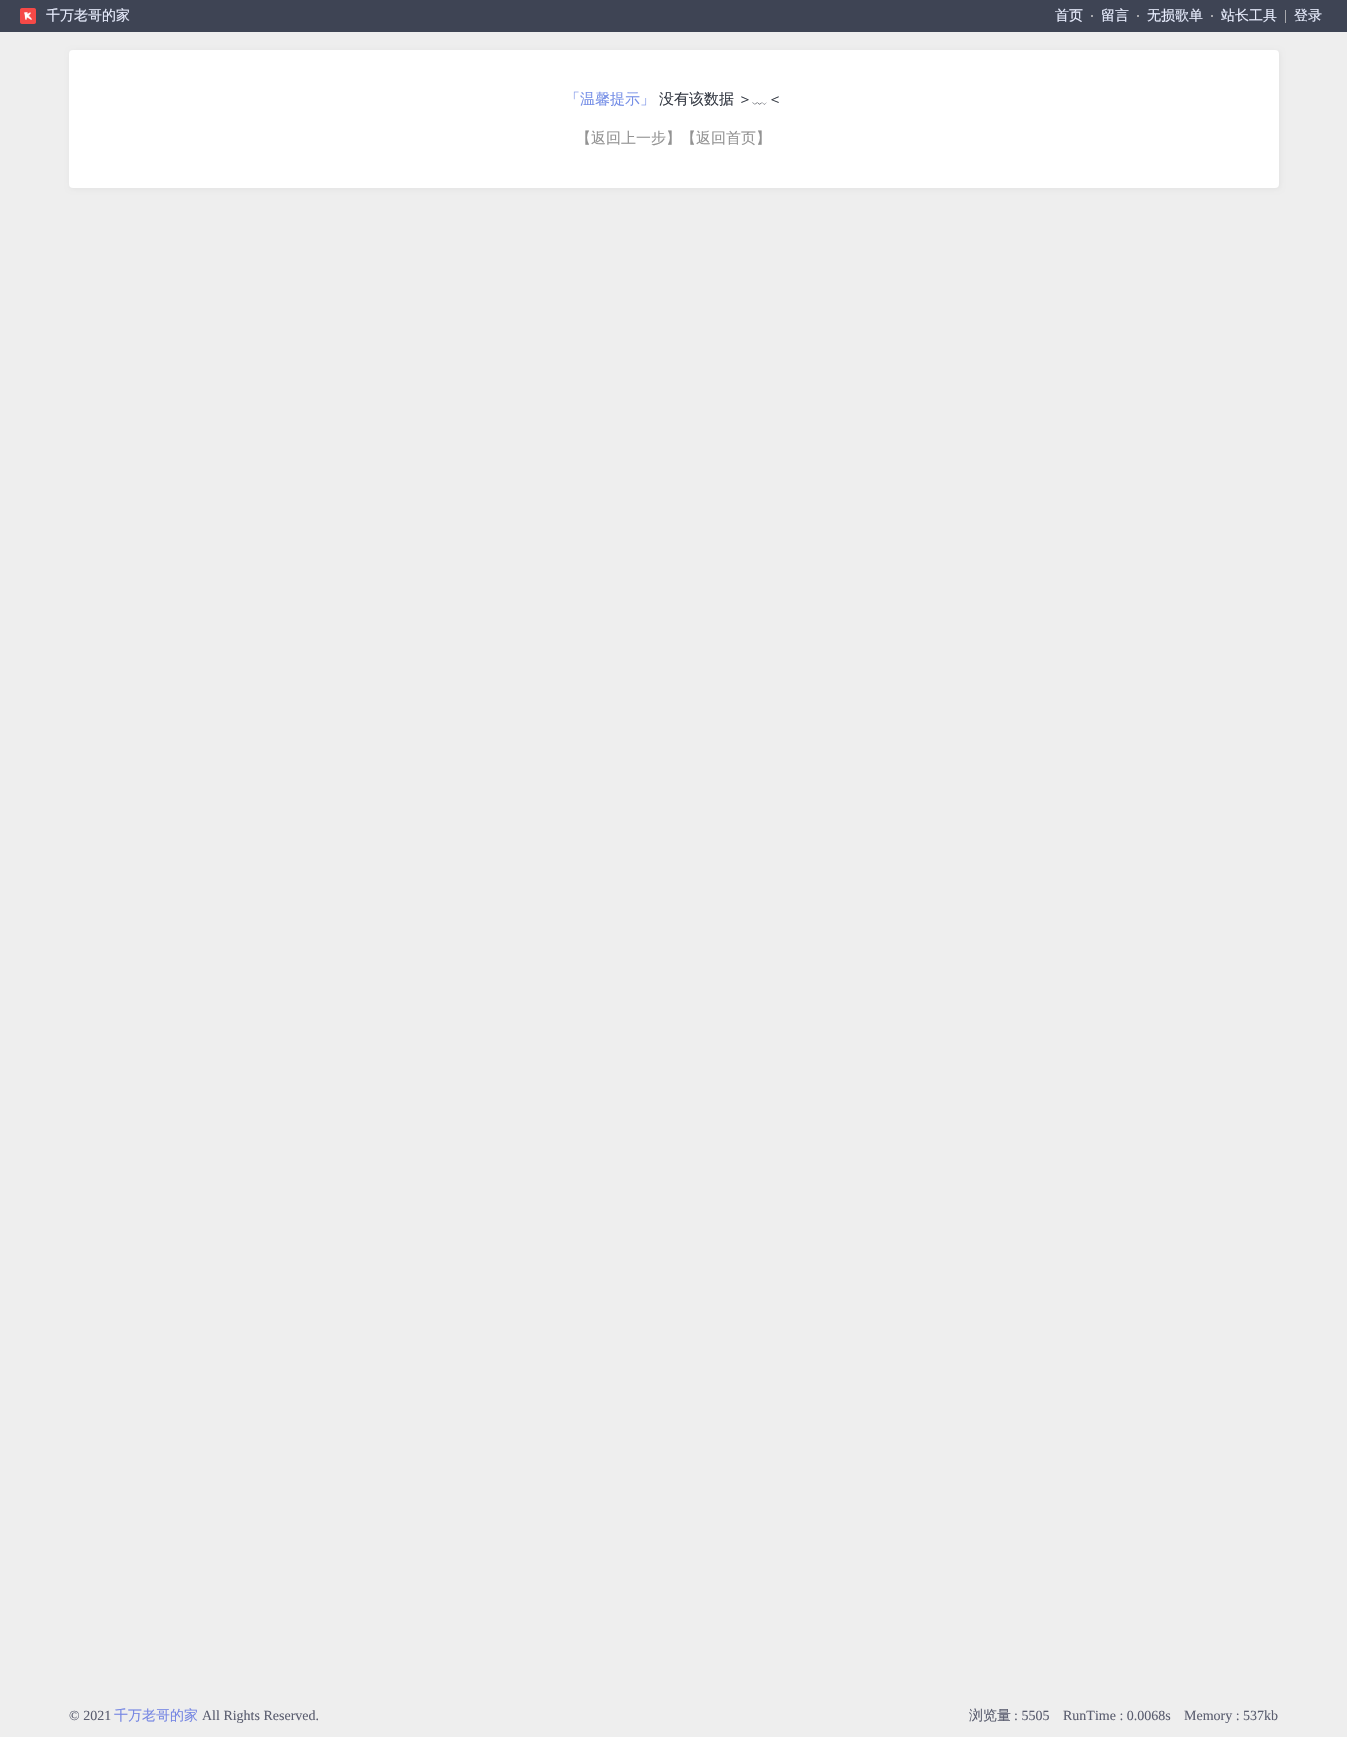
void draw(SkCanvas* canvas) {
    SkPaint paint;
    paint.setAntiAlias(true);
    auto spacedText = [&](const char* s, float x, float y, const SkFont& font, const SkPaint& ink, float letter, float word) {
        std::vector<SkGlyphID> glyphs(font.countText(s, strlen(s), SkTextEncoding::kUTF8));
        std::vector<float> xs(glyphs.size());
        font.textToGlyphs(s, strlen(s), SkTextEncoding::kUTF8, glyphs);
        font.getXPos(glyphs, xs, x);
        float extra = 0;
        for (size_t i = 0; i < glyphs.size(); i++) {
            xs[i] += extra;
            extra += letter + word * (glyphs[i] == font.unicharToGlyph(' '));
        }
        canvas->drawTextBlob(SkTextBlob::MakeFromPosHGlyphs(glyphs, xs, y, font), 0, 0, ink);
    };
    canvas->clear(0xFFEEEEEE);
    paint.setColor(0xFF3E4454);
    canvas->drawRect(SkRect::MakeXYWH(0, 0, 1347, 32), paint);
    canvas->drawImageRect(SkImages::DeferredFromEncodedData(SkData::MakeFromFileName("img1.png")), SkRect::MakeXYWH(20, 8, 16, 16), SkSamplingOptions());
    SkFont font1(fontMgr->matchFamilyStyle("WenQuanYi Zen Hei", SkFontStyle(500, SkFontStyle::kNormal_Width, SkFontStyle::kUpright_Slant)), 14);
    font1.setSubpixel(true);
    paint.setColor(0xFFE9EEFF);
    canvas->drawString("千万老哥的家", 46, 20, font1, paint);
    canvas->drawString("首页", 1055, 20, font1, paint);
    paint.setColor(0xFFA7A8AD);
    canvas->drawRect(SkRect::MakeXYWH(1091, 15, 2, 2), paint);
    paint.setColor(0xFFE9EEFF);
    canvas->drawString("留言", 1101, 20, font1, paint);
    paint.setColor(0xFFA7A8AD);
    canvas->drawRect(SkRect::MakeXYWH(1137, 15, 2, 2), paint);
    paint.setColor(0xFFE9EEFF);
    canvas->drawString("无损歌单", 1147, 20, font1, paint);
    paint.setColor(0xFFA7A8AD);
    canvas->drawRect(SkRect::MakeXYWH(1211, 15, 2, 2), paint);
    paint.setColor(0xFFE9EEFF);
    canvas->drawString("站长工具", 1221, 20, font1, paint);
    paint.setColor(0xFFA7A8AD);
    canvas->drawRect(SkRect::MakeXYWH(1285, 10, 1, 13), paint);
    paint.setColor(0xFFE9EEFF);
    canvas->drawString("登录", 1294, 20, font1, paint);
    paint.setColor(0x0D000000);
    paint.setMaskFilter(SkMaskFilter::MakeBlur(kNormal_SkBlurStyle, 2.5f));
    canvas->drawRoundRect(SkRect::MakeXYWH(70, 51, 1210, 138), 4, 4, paint);
    paint.setMaskFilter(nullptr);
    paint.setColor(0xFFFFFFFF);
    canvas->drawRoundRect(SkRect::MakeXYWH(69, 50, 1210, 138), 4, 4, paint);
    SkFont font2(fontMgr->matchFamilyStyle("WenQuanYi Zen Hei", SkFontStyle(500, SkFontStyle::kNormal_Width, SkFontStyle::kUpright_Slant)), 15);
    font2.setSubpixel(true);
    paint.setColor(0xFF768FE7);
    canvas->drawString("「温馨提示」", 565, 104, font2, paint);
    paint.setColor(0xFF353A44);
    spacedText("没有该数据 ＞﹏＜", 659, 104, font2, paint, 0, -1);
    paint.setColor(0xFF939393);
    canvas->drawString("【返回上一步】【返回首页】", 576, 143, font2, paint);
    SkFont font3(fontMgr->matchFamilyStyle("Liberation Serif", SkFontStyle::Normal()), 14);
    font3.setSubpixel(true);
    paint.setColor(0xFF5B5E70);
    canvas->drawString("© 2021", 69, 1720, font3, paint);
    paint.setColor(0xFF7485E3);
    canvas->drawString("千万老哥的家", 114, 1720, font1, paint);
    paint.setColor(0xFF5B5E70);
    canvas->drawString("All Rights Reserved.", 202, 1720, font3, paint);
    canvas->drawString("浏览量", 969, 1720, font1, paint);
    canvas->drawString(": 5505", 1014, 1720, font3, paint);
    canvas->drawString("RunTime : 0.0068s", 1063, 1720, font3, paint);
    canvas->drawString("Memory : 537kb", 1184, 1720, font3, paint);
}
